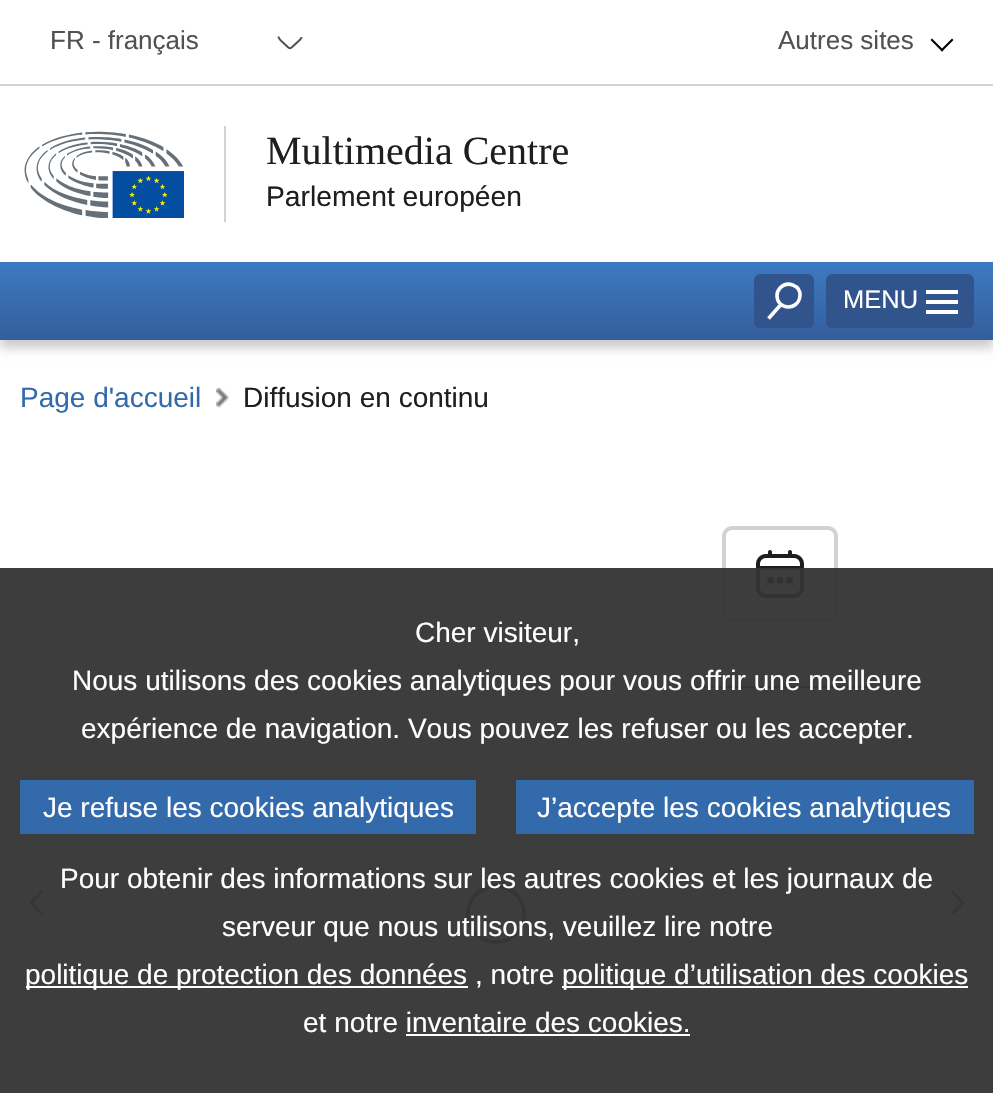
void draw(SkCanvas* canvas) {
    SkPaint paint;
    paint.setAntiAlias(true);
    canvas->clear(0xFFFFFFFF);
    paint.setColor(0xFFD1D3D4);
    canvas->drawRect(SkRect::MakeXYWH(0, 84, 993, 2), paint);
    SkFont font1(fontMgr->matchFamilyStyle("Liberation Sans", SkFontStyle::Normal()), 26);
    font1.setSubpixel(true);
    paint.setColor(0xFF505154);
    canvas->drawString("FR - français", 50, 49, font1, paint);
    paint.setStyle(SkPaint::kStroke_Style);
    paint.setStrokeWidth(2);
    canvas->drawPath(SkPathBuilder().moveTo(301.5f, 37).cubicTo(301.5f, 39, 298, 41.5f, 296.5f, 43).cubicTo(289.5f, 50, 290.5f, 50, 283.5f, 43).cubicTo(282, 41.5f, 278.5f, 39, 278.5f, 36.5f).detach(), paint);
    paint.setStyle(SkPaint::kFill_Style);
    canvas->drawString("Autres sites", 778, 49, font1, paint);
    paint.setColor(0xFF000000);
    canvas->drawPath(SkPathBuilder().moveTo(952, 38.5f).lineTo(953.5f, 40).lineTo(942, 51.5f).lineTo(940.5f, 50).close().detach(), paint);
    canvas->drawPath(SkPathBuilder().moveTo(932, 38.5f).lineTo(943.5f, 50).lineTo(942, 51.5f).lineTo(930.5f, 40).close().detach(), paint);
    canvas->drawImageRect(SkImages::DeferredFromEncodedData(SkData::MakeFromFileName("img1.png")), SkRect::MakeXYWH(24, 131, 160, 87), SkSamplingOptions());
    paint.setColor(0xFFD1D3D4);
    canvas->drawRect(SkRect::MakeXYWH(224, 126, 2, 96), paint);
    SkFont font2(fontMgr->matchFamilyStyle("Liberation Serif", SkFontStyle::Normal()), 40);
    font2.setSubpixel(true);
    paint.setColor(0xFF1E1E1F);
    canvas->drawString("Multimedia Centre", 266, 164, font2, paint);
    SkFont font3(fontMgr->matchFamilyStyle("Liberation Sans", SkFontStyle::Normal()), 28.25f);
    font3.setSubpixel(true);
    canvas->drawString("Parlement européen", 266, 206, font3, paint);
    paint.setColor(0x33000000);
    paint.setMaskFilter(SkMaskFilter::MakeBlur(kNormal_SkBlurStyle, 5));
    canvas->drawRect(SkRect::MakeXYWH(0, 270, 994, 78), paint);
    paint.setMaskFilter(nullptr);
    {
        const SkColor colors[] = {0xFF3D7AC1, 0xFF345E9C};
        const float stops[] = {0, 1};
        const SkPoint ends[] = {{497, 262}, {497, 340}};
        paint.setShader(SkGradientShader::MakeLinear(ends, colors, stops, 2, SkTileMode::kClamp));
        paint.setAlpha(255);
    }
    canvas->drawRect(SkRect::MakeXYWH(0, 262, 993, 78), paint);
    paint.setShader(nullptr);
    paint.setColor(0xFF32548D);
    canvas->drawRoundRect(SkRect::MakeXYWH(754, 274, 60, 54), 6, 6, paint);
    paint.setStyle(SkPaint::kStroke_Style);
    paint.setStrokeWidth(3.6f);
    paint.setColor(0xFFFFFFFF);
    canvas->drawPath(SkPathBuilder().moveTo(777, 295.5f).cubicTo(777, 310.5f, 799, 311, 800, 295.5f).cubicTo(800.5f, 285.5f, 787.5f, 280.5f, 780.5f, 287.5f).cubicTo(778.5f, 289.5f, 777, 292.5f, 777, 295.5f).close().moveTo(781, 304.5f).lineTo(768.5f, 318.5f).detach(), paint);
    paint.setStyle(SkPaint::kFill_Style);
    paint.setColor(0xFF32548D);
    canvas->drawRoundRect(SkRect::MakeXYWH(826, 274, 148, 54), 6, 6, paint);
    SkFont font4(fontMgr->matchFamilyStyle("Liberation Sans", SkFontStyle::Normal()), 25.5f);
    font4.setSubpixel(true);
    paint.setColor(0xFFFFFFFF);
    canvas->drawString("MENU", 843, 308, font4, paint);
    canvas->drawRect(SkRect::MakeXYWH(926, 290, 32, 4), paint);
    canvas->drawRect(SkRect::MakeXYWH(926, 300, 32, 4), paint);
    canvas->drawRect(SkRect::MakeXYWH(926, 310, 32, 4), paint);
    SkFont font5(fontMgr->matchFamilyStyle("Liberation Sans", SkFontStyle::Normal()), 28);
    font5.setSubpixel(true);
    paint.setColor(0xFF326AAB);
    canvas->drawString("Page d'accueil", 20, 407, font5, paint);
    canvas->drawImageRect(SkImages::DeferredFromEncodedData(SkData::MakeFromFileName("img2.png")), SkRect::MakeXYWH(216, 388, 13, 20), SkSamplingOptions());
    paint.setColor(0xFF1E1E1F);
    canvas->drawString("Diffusion en continu", 243, 407, font5, paint);
    paint.setStyle(SkPaint::kStroke_Style);
    paint.setStrokeWidth(4);
    paint.setColor(0xFFD1D2D3);
    canvas->drawRoundRect(SkRect::MakeXYWH(724, 528, 112, 92), 8, 8, paint);
    canvas->drawImageRect(SkImages::DeferredFromEncodedData(SkData::MakeFromFileName("img3.png")), SkRect::MakeXYWH(756, 550, 48, 48), SkSamplingOptions());
    paint.setStyle(SkPaint::kFill_Style);
    paint.setColor(0xFF326AAB);
    canvas->drawRect(SkRect::MakeXYWH(690, 686, 180, 2), paint);
    paint.setStyle(SkPaint::kStroke_Style);
    paint.setStrokeWidth(2.8f);
    paint.setStrokeCap(SkPaint::kRound_Cap);
    paint.setStrokeJoin(SkPaint::kRound_Join);
    canvas->drawPath(SkPathBuilder().moveTo(41.5f, 913.5f).lineTo(31, 902.5f).close().moveTo(41.5f, 892).lineTo(31, 902.5f).close().detach(), paint);
    paint.setStyle(SkPaint::kFill_Style);
    paint.setColor(0xFFD1D3D4);
    canvas->drawRect(SkRect::MakeXYWH(68, 868, 858, 2), paint);
    paint.setStyle(SkPaint::kStroke_Style);
    paint.setStrokeWidth(4);
    paint.setStrokeCap(SkPaint::kButt_Cap);
    paint.setStrokeJoin(SkPaint::kMiter_Join);
    paint.setColor(0xFF326AAB);
    canvas->drawCircle(496, 914, 28, paint);
    paint.setStrokeWidth(2.8f);
    paint.setStrokeCap(SkPaint::kRound_Cap);
    paint.setStrokeJoin(SkPaint::kRound_Join);
    canvas->drawPath(SkPathBuilder().moveTo(952.5f, 892).lineTo(963, 903).close().moveTo(952.5f, 913.5f).lineTo(963, 903).close().detach(), paint);
    paint.setStyle(SkPaint::kFill_Style);
    paint.setColor(0xFFF3F4F4);
    canvas->drawRect(SkRect::MakeXYWH(20, 1048, 954, 45), paint);
    paint.setColor(0xF2333333);
    canvas->drawRect(SkRect::MakeXYWH(0, 568, 993, 525), paint);
    paint.setColor(0xFFFFFFFF);
    canvas->drawString("Cher visiteur,", 415, 642, font5, paint);
    canvas->drawString("Nous utilisons des cookies analytiques pour vous offrir une meilleure", 72, 690, font5, paint);
    canvas->drawString("expérience de navigation. Vous pouvez les refuser ou les accepter.", 81, 738, font5, paint);
    paint.setColor(0xFF326AAB);
    canvas->drawRect(SkRect::MakeXYWH(20, 780, 456, 54), paint);
    paint.setColor(0xFFFFFFFF);
    canvas->drawString("Je refuse les cookies analytiques", 43, 817, font5, paint);
    paint.setColor(0xFF326AAB);
    canvas->drawRect(SkRect::MakeXYWH(516, 780, 458, 54), paint);
    paint.setColor(0xFFFFFFFF);
    canvas->drawString("J’accepte les cookies analytiques", 537, 817, font5, paint);
    canvas->drawString("Pour obtenir des informations sur les autres cookies et les journaux de", 60, 888, font5, paint);
    canvas->drawString("serveur que nous utilisons, veuillez lire notre", 222, 936, font5, paint);
    canvas->drawRect(SkRect::MakeXYWH(26, 986, 442, 2), paint);
    canvas->drawString("politique de protection des données , notre", 25, 984, font5, paint);
    canvas->drawRect(SkRect::MakeXYWH(562, 986, 406, 2), paint);
    canvas->drawString("politique d’utilisation des cookies", 562, 984, font5, paint);
    canvas->drawString("et notre inventaire des cookies.", 303, 1032, font5, paint);
    canvas->drawRect(SkRect::MakeXYWH(406, 1034, 284, 2), paint);
}
